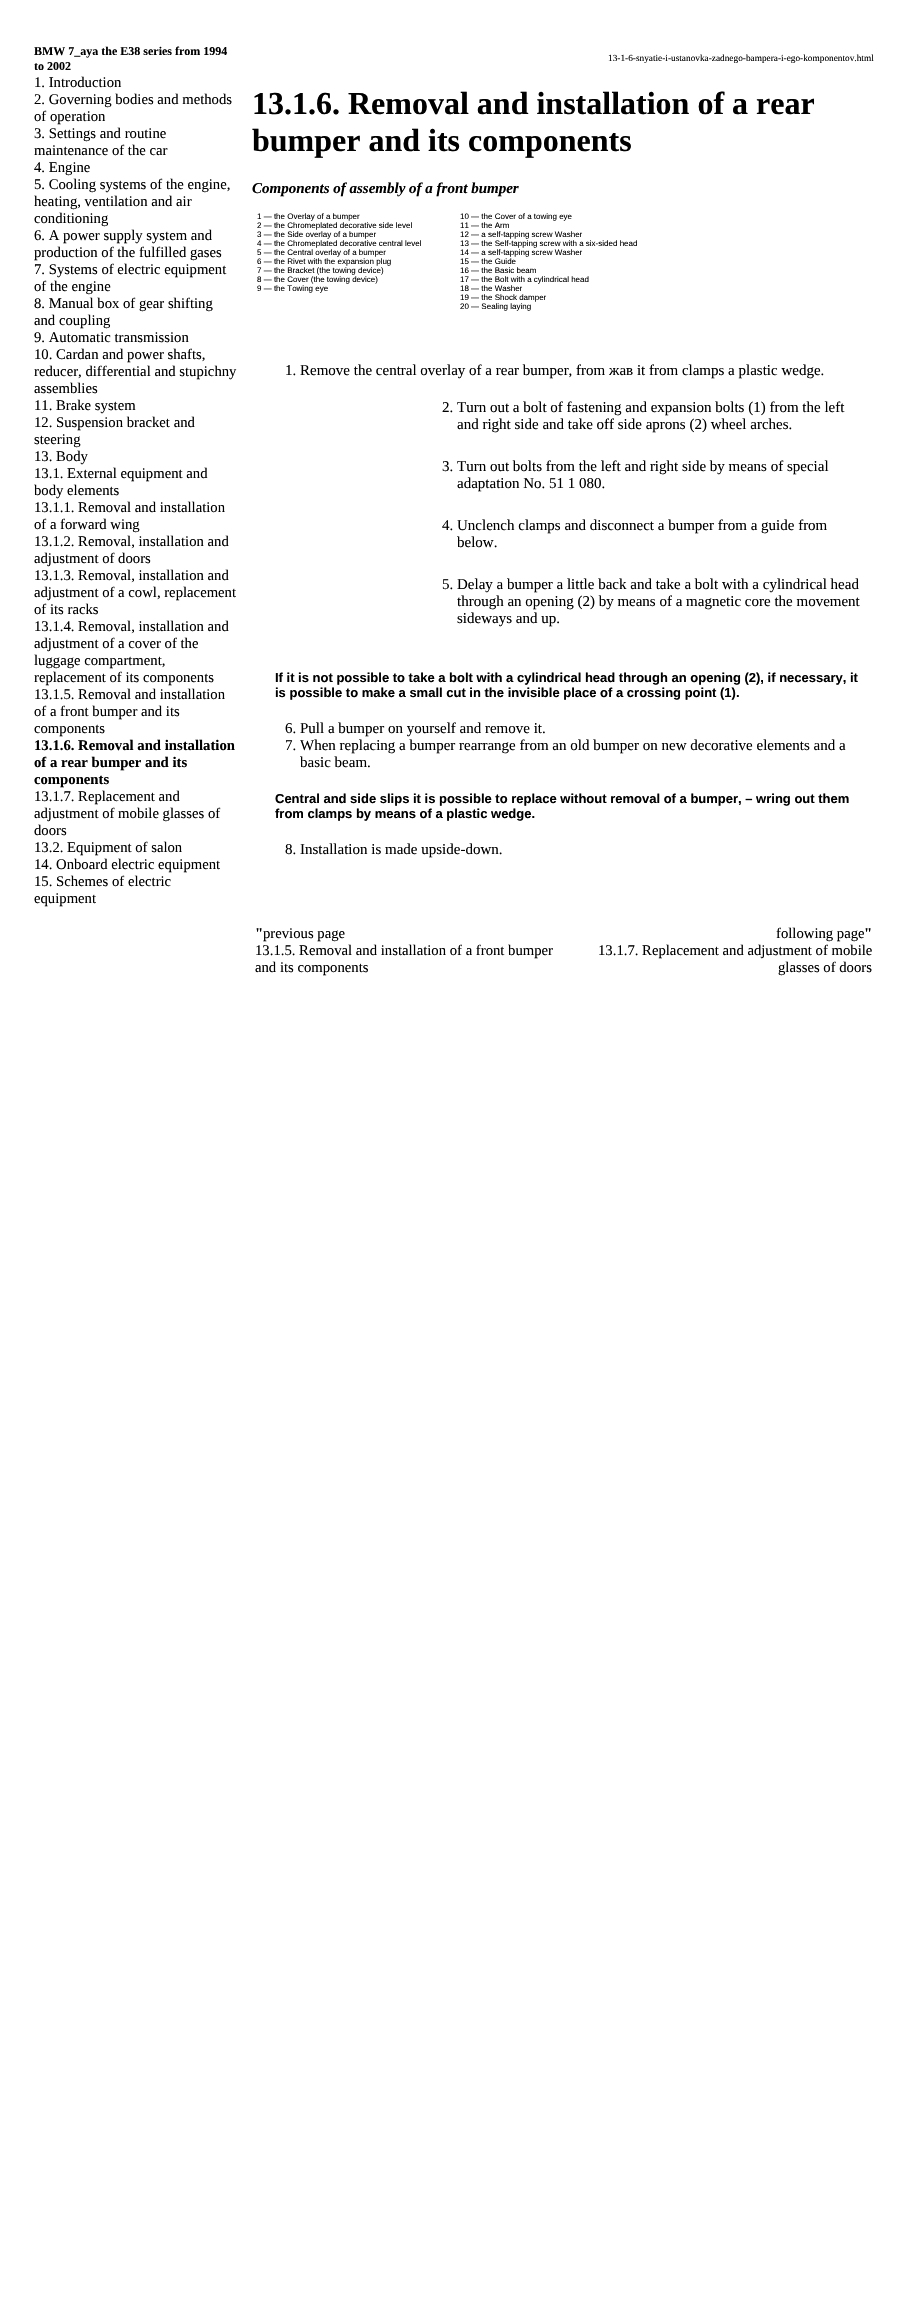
void draw(SkCanvas* canvas) {
    SkPaint paint;
    paint.setAntiAlias(true);
    canvas->clear(0xFFFFFFFF);
    SkFont font1(fontMgr->matchFamilyStyle("Liberation Serif", SkFontStyle::Bold()), 12);
    font1.setSubpixel(true);
    paint.setColor(0xFF000000);
    canvas->drawString("BMW 7_aya the E38 series from 1994", 34, 55, font1, paint);
    canvas->drawString("to 2002", 34, 70, font1, paint);
    SkFont font2(fontMgr->matchFamilyStyle("Liberation Serif", SkFontStyle::Normal()), 14.7f);
    font2.setSubpixel(true);
    canvas->drawString("1. Introduction", 34, 87, font2, paint);
    canvas->drawString("2. Governing bodies and methods", 34, 104, font2, paint);
    canvas->drawString("of operation", 34, 121, font2, paint);
    canvas->drawString("3. Settings and routine", 34, 138, font2, paint);
    canvas->drawString("maintenance of the car", 34, 155, font2, paint);
    canvas->drawString("4. Engine", 34, 172, font2, paint);
    canvas->drawString("5. Cooling systems of the engine,", 34, 189, font2, paint);
    canvas->drawString("heating, ventilation and air", 34, 206, font2, paint);
    canvas->drawString("conditioning", 34, 223, font2, paint);
    canvas->drawString("6. A power supply system and", 34, 240, font2, paint);
    canvas->drawString("production of the fulfilled gases", 34, 257, font2, paint);
    canvas->drawString("7. Systems of electric equipment", 34, 274, font2, paint);
    canvas->drawString("of the engine", 34, 291, font2, paint);
    canvas->drawString("8. Manual box of gear shifting", 34, 308, font2, paint);
    canvas->drawString("and coupling", 34, 325, font2, paint);
    canvas->drawString("9. Automatic transmission", 34, 342, font2, paint);
    canvas->drawString("10. Cardan and power shafts,", 34, 359, font2, paint);
    canvas->drawString("reducer, differential and stupichny", 34, 376, font2, paint);
    canvas->drawString("assemblies", 34, 393, font2, paint);
    canvas->drawString("11. Brake system", 34, 410, font2, paint);
    canvas->drawString("12. Suspension bracket and", 34, 427, font2, paint);
    canvas->drawString("steering", 34, 444, font2, paint);
    canvas->drawString("13. Body", 34, 461, font2, paint);
    canvas->drawString("13.1. External equipment and", 34, 478, font2, paint);
    canvas->drawString("body elements", 34, 495, font2, paint);
    canvas->drawString("13.1.1. Removal and installation", 34, 512, font2, paint);
    canvas->drawString("of a forward wing", 34, 529, font2, paint);
    canvas->drawString("13.1.2. Removal, installation and", 34, 546, font2, paint);
    canvas->drawString("adjustment of doors", 34, 563, font2, paint);
    canvas->drawString("13.1.3. Removal, installation and", 34, 580, font2, paint);
    canvas->drawString("adjustment of a cowl, replacement", 34, 597, font2, paint);
    canvas->drawString("of its racks", 34, 614, font2, paint);
    canvas->drawString("13.1.4. Removal, installation and", 34, 631, font2, paint);
    canvas->drawString("adjustment of a cover of the", 34, 648, font2, paint);
    canvas->drawString("luggage compartment,", 34, 665, font2, paint);
    canvas->drawString("replacement of its components", 34, 682, font2, paint);
    canvas->drawString("13.1.5. Removal and installation", 34, 699, font2, paint);
    canvas->drawString("of a front bumper and its", 34, 716, font2, paint);
    canvas->drawString("components", 34, 733, font2, paint);
    SkFont font3(fontMgr->matchFamilyStyle("Liberation Serif", SkFontStyle::Bold()), 14.7f);
    font3.setSubpixel(true);
    canvas->drawString("13.1.6. Removal and installation", 34, 750, font3, paint);
    canvas->drawString("of a rear bumper and its", 34, 767, font3, paint);
    canvas->drawString("components", 34, 784, font3, paint);
    canvas->drawString("13.1.7. Replacement and", 34, 801, font2, paint);
    canvas->drawString("adjustment of mobile glasses of", 34, 818, font2, paint);
    canvas->drawString("doors", 34, 835, font2, paint);
    canvas->drawString("13.2. Equipment of salon", 34, 852, font2, paint);
    canvas->drawString("14. Onboard electric equipment", 34, 869, font2, paint);
    canvas->drawString("15. Schemes of electric", 34, 886, font2, paint);
    canvas->drawString("equipment", 34, 903, font2, paint);
    SkFont font4(fontMgr->matchFamilyStyle("Liberation Serif", SkFontStyle::Normal()), 9.3f);
    font4.setSubpixel(true);
    canvas->drawString("13-1-6-snyatie-i-ustanovka-zadnego-bampera-i-ego-komponentov.html", 608, 61, font4, paint);
    SkFont font5(fontMgr->matchFamilyStyle("Liberation Serif", SkFontStyle::Bold()), 32);
    font5.setSubpixel(true);
    canvas->drawString("13.1.6. Removal and installation of a rear", 252, 114, font5, paint);
    canvas->drawString("bumper and its components", 252, 151, font5, paint);
    SkFont font6(fontMgr->matchFamilyStyle("Liberation Serif", SkFontStyle::BoldItalic()), 15);
    font6.setSubpixel(true);
    canvas->drawString("Components of assembly of a front bumper", 252, 193, font6, paint);
    SkFont font7(fontMgr->matchFamilyStyle("Liberation Sans", SkFontStyle::Normal()), 8);
    font7.setSubpixel(true);
    canvas->drawString("1 — the Overlay of a bumper", 257, 219, font7, paint);
    canvas->drawString("2 — the Chromeplated decorative side level", 257, 228, font7, paint);
    canvas->drawString("3 — the Side overlay of a bumper", 257, 237, font7, paint);
    canvas->drawString("4 — the Chromeplated decorative central level", 257, 246, font7, paint);
    canvas->drawString("5 — the Central overlay of a bumper", 257, 255, font7, paint);
    canvas->drawString("6 — the Rivet with the expansion plug", 257, 264, font7, paint);
    canvas->drawString("7 — the Bracket (the towing device)", 257, 273, font7, paint);
    canvas->drawString("8 — the Cover (the towing device)", 257, 282, font7, paint);
    canvas->drawString("9 — the Towing eye", 257, 291, font7, paint);
    canvas->drawString("10 — the Cover of a towing eye", 460, 219, font7, paint);
    canvas->drawString("11 — the Arm", 460, 228, font7, paint);
    canvas->drawString("12 — a self-tapping screw Washer", 460, 237, font7, paint);
    canvas->drawString("13 — the Self-tapping screw with a six-sided head", 460, 246, font7, paint);
    canvas->drawString("14 — a self-tapping screw Washer", 460, 255, font7, paint);
    canvas->drawString("15 — the Guide", 460, 264, font7, paint);
    canvas->drawString("16 — the Basic beam", 460, 273, font7, paint);
    canvas->drawString("17 — the Bolt with a cylindrical head", 460, 282, font7, paint);
    canvas->drawString("18 — the Washer", 460, 291, font7, paint);
    canvas->drawString("19 — the Shock damper", 460, 300, font7, paint);
    canvas->drawString("20 — Sealing laying", 460, 309, font7, paint);
    SkFont font8(fontMgr->matchFamilyStyle("Liberation Serif", SkFontStyle::Normal()), 15);
    font8.setSubpixel(true);
    canvas->drawString("1. Remove the central overlay of a rear bumper, from жав it from clamps a plastic wedge.", 285, 375, font8, paint);
    canvas->drawString("2. Turn out a bolt of fastening and expansion bolts (1) from the left", 442, 412, font8, paint);
    canvas->drawString("and right side and take off side aprons (2) wheel arches.", 457, 429, font8, paint);
    canvas->drawString("3. Turn out bolts from the left and right side by means of special", 442, 471, font8, paint);
    canvas->drawString("adaptation No. 51 1 080.", 457, 488, font8, paint);
    canvas->drawString("4. Unclench clamps and disconnect a bumper from a guide from", 442, 530, font8, paint);
    canvas->drawString("below.", 457, 547, font8, paint);
    canvas->drawString("5. Delay a bumper a little back and take a bolt with a cylindrical head", 442, 589, font8, paint);
    canvas->drawString("through an opening (2) by means of a magnetic core the movement", 457, 606, font8, paint);
    canvas->drawString("sideways and up.", 457, 623, font8, paint);
    SkFont font9(fontMgr->matchFamilyStyle("Liberation Sans", SkFontStyle::Bold()), 13);
    font9.setSubpixel(true);
    canvas->drawString("If it is not possible to take a bolt with a cylindrical head through an opening (2), if necessary, it", 275, 682, font9, paint);
    canvas->drawString("is possible to make a small cut in the invisible place of a crossing point (1).", 275, 697, font9, paint);
    canvas->drawString("6. Pull a bumper on yourself and remove it.", 285, 733, font8, paint);
    canvas->drawString("7. When replacing a bumper rearrange from an old bumper on new decorative elements and a", 285, 750, font8, paint);
    canvas->drawString("basic beam.", 300, 767, font8, paint);
    canvas->drawString("Central and side slips it is possible to replace without removal of a bumper, – wring out them", 275, 803, font9, paint);
    canvas->drawString("from clamps by means of a plastic wedge.", 275, 818, font9, paint);
    canvas->drawString("8. Installation is made upside-down.", 285, 854, font8, paint);
    canvas->drawString("\"", 255, 938, font3, paint);
    canvas->drawString("previous page", 263, 938, font2, paint);
    canvas->drawString("13.1.5. Removal and installation of a front bumper", 255, 955, font2, paint);
    canvas->drawString("and its components", 255, 972, font2, paint);
    canvas->drawString("following page", 776, 938, font2, paint);
    canvas->drawString("\"", 864, 938, font3, paint);
    canvas->drawString("13.1.7. Replacement and adjustment of mobile", 598, 955, font2, paint);
    canvas->drawString("glasses of doors", 778, 972, font2, paint);
}
